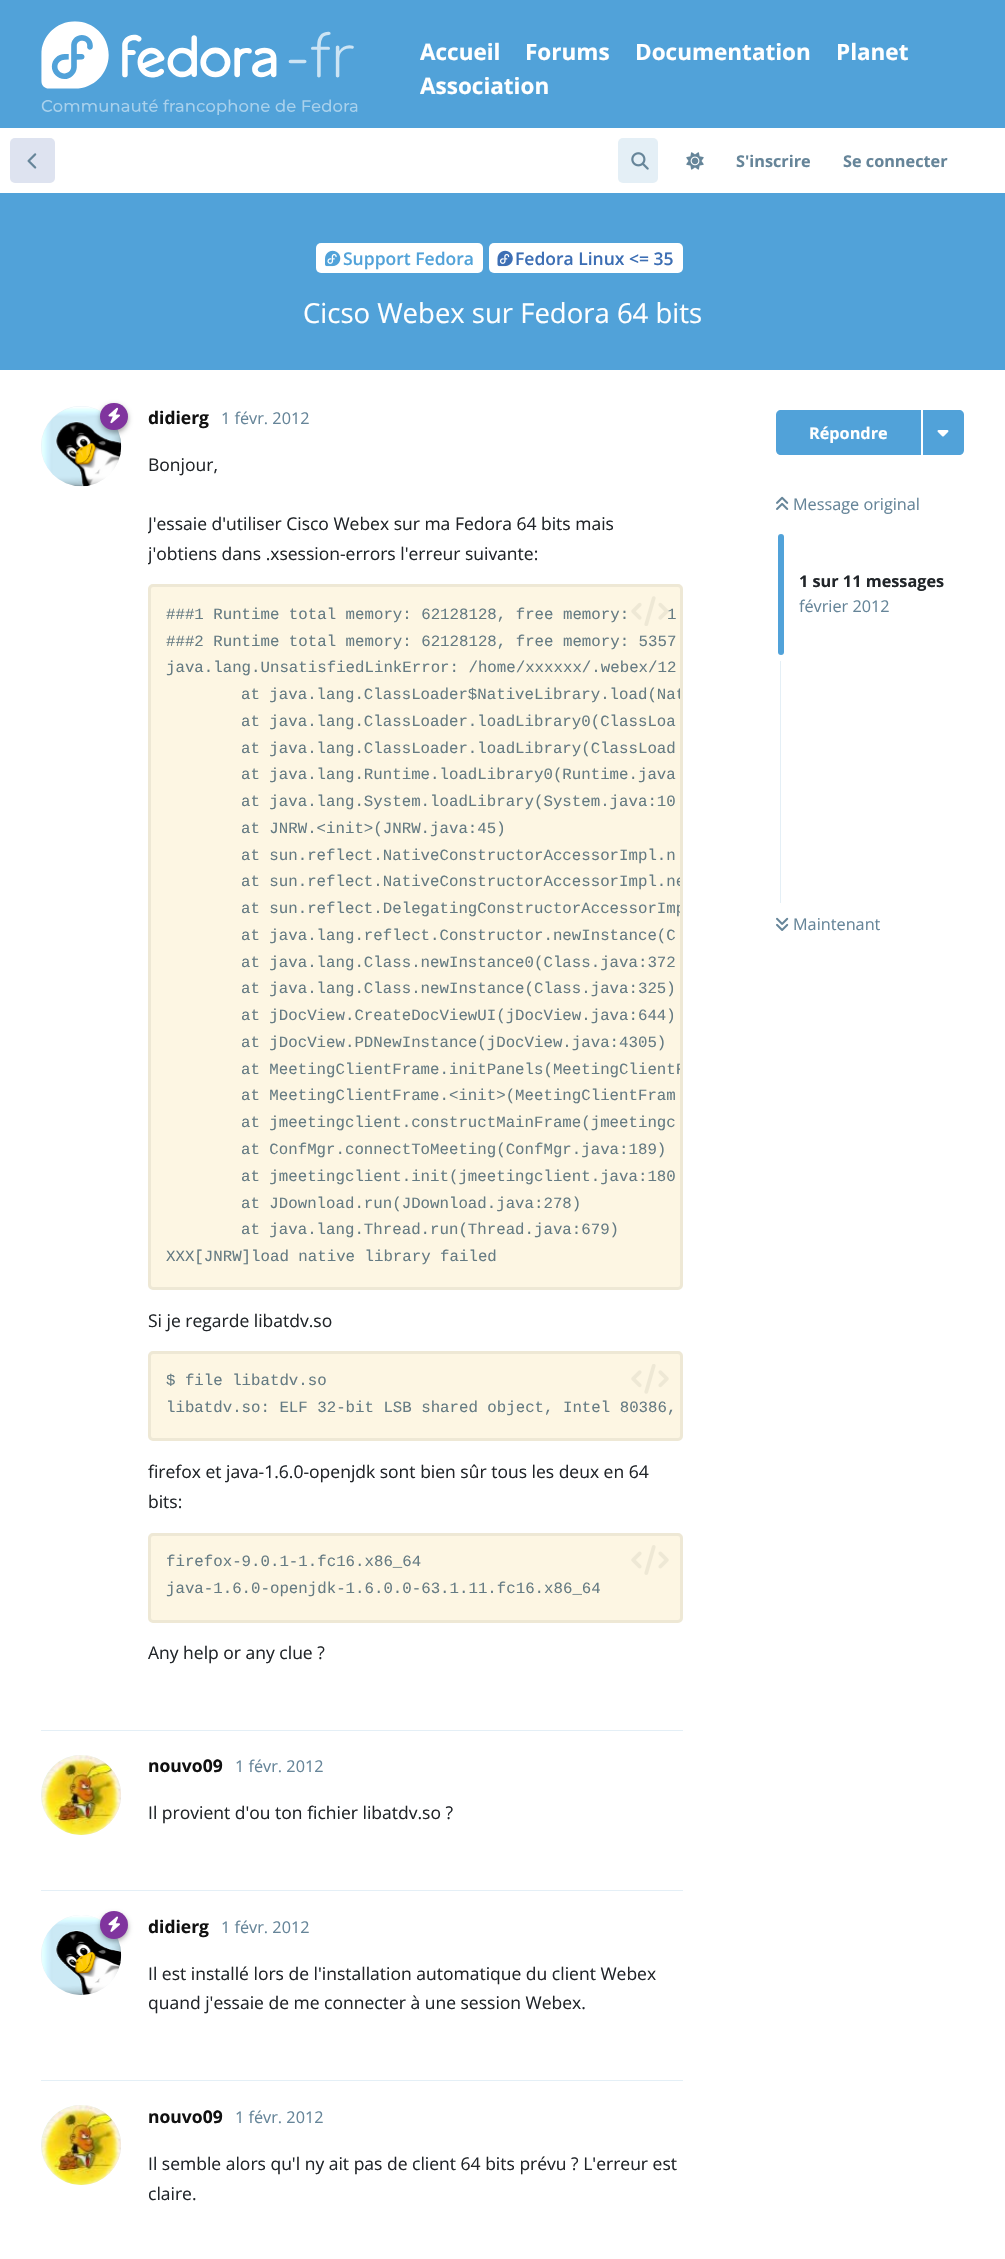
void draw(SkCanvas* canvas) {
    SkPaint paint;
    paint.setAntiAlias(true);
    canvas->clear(0xFFFFFFFF);
    paint.setColor(0xFF51A2D9);
    canvas->drawRect(SkRect::MakeXYWH(0, 0, 1005, 128), paint);
    canvas->drawImageRect(SkImages::DeferredFromEncodedData(SkData::MakeFromFileName("img1.png")), SkRect::MakeXYWH(41, 21, 317, 94), SkSamplingOptions());
    SkFont font1(fontMgr->matchFamilyStyle("Open Sans", SkFontStyle::Bold()), 22.5f);
    font1.setSubpixel(true);
    paint.setColor(0xFFFFFFFF);
    canvas->drawString("Accueil", 420, 60, font1, paint);
    canvas->drawString("Forums", 525, 60, font1, paint);
    canvas->drawString("Documentation", 635, 60, font1, paint);
    canvas->drawString("Planet", 836, 60, font1, paint);
    canvas->drawString("Association", 420, 94, font1, paint);
    paint.setColor(0xFFDEE3F0);
    canvas->drawRoundRect(SkRect::MakeXYWH(10, 138, 45, 45), 5, 5, paint);
    canvas->drawImageRect(SkImages::DeferredFromEncodedData(SkData::MakeFromFileName("img2.png")), SkRect::MakeXYWH(27, 153, 10, 16), SkSamplingOptions());
    paint.setColor(0xFFE4EFF6);
    canvas->drawRoundRect(SkRect::MakeXYWH(618, 138, 40, 45), 5, 5, paint);
    canvas->drawImageRect(SkImages::DeferredFromEncodedData(SkData::MakeFromFileName("img3.png")), SkRect::MakeXYWH(631, 152, 18, 18), SkSamplingOptions());
    canvas->drawImageRect(SkImages::DeferredFromEncodedData(SkData::MakeFromFileName("img4.png")), SkRect::MakeXYWH(686, 152, 18, 18), SkSamplingOptions());
    SkFont font2(fontMgr->matchFamilyStyle("Open Sans", SkFontStyle::Bold()), 16.25f);
    font2.setSubpixel(true);
    paint.setColor(0xFF668599);
    canvas->drawString("S'inscrire", 736, 167, font2, paint);
    canvas->drawString("Se connecter", 843, 167, font2, paint);
    paint.setColor(0xFF51A2D9);
    canvas->drawRect(SkRect::MakeXYWH(0, 193, 1005, 177), paint);
    paint.setColor(0xFFFFFFFF);
    canvas->drawRoundRect(SkRect::MakeXYWH(316, 243, 167, 30), 5, 5, paint);
    canvas->drawImageRect(SkImages::DeferredFromEncodedData(SkData::MakeFromFileName("img5.png")), SkRect::MakeXYWH(325, 250, 16, 17), SkSamplingOptions());
    SkFont font3(fontMgr->matchFamilyStyle("Open Sans", SkFontStyle(600, SkFontStyle::kNormal_Width, SkFontStyle::kUpright_Slant)), 17.5f);
    font3.setSubpixel(true);
    paint.setColor(0xFF51A2D9);
    canvas->drawString("Support Fedora", 343, 265, font3, paint);
    paint.setColor(0xFFFFFFFF);
    canvas->drawRoundRect(SkRect::MakeXYWH(489, 243, 194, 30), 5, 5, paint);
    canvas->drawImageRect(SkImages::DeferredFromEncodedData(SkData::MakeFromFileName("img6.png")), SkRect::MakeXYWH(497, 250, 16, 17), SkSamplingOptions());
    paint.setColor(0xFF3C6EB4);
    canvas->drawString("Fedora Linux <= 35", 515, 265, font3, paint);
    SkFont font4(fontMgr->matchFamilyStyle("Open Sans", SkFontStyle::Normal()), 27.5f);
    font4.setSubpixel(true);
    paint.setColor(0xFFFFFFFF);
    canvas->drawString("Cicso Webex sur Fedora 64 bits", 303, 323, font4, paint);
    paint.setColor(0xFFE4EFF6);
    canvas->drawRect(SkRect::MakeXYWH(41, 1730, 642, 1), paint);
    canvas->drawCircle(81, 446, 40, paint);
    canvas->drawImageRect(SkImages::DeferredFromEncodedData(SkData::MakeFromFileName("img8.png")), SkRect::MakeXYWH(41, 406, 81, 81), SkSamplingOptions());
    paint.setColor(0x59000000);
    paint.setMaskFilter(SkMaskFilter::MakeBlur(kNormal_SkBlurStyle, 2.5f));
    canvas->drawRoundRect(SkRect::MakeXYWH(100, 405, 28, 28), 14, 14, paint);
    paint.setMaskFilter(nullptr);
    paint.setColor(0xFF80349E);
    canvas->drawRoundRect(SkRect::MakeXYWH(100, 403, 28, 27), 13.5f, 13.5f, paint);
    canvas->drawImageRect(SkImages::DeferredFromEncodedData(SkData::MakeFromFileName("img7.png")), SkRect::MakeXYWH(108, 407, 12, 17), SkSamplingOptions());
    SkFont font5(fontMgr->matchFamilyStyle("Open Sans", SkFontStyle::Bold()), 17.5f);
    font5.setSubpixel(true);
    paint.setColor(0xFF111111);
    canvas->drawString("didierg", 148, 424, font5, paint);
    SkFont font6(fontMgr->matchFamilyStyle("Open Sans", SkFontStyle::Normal()), 16.25f);
    font6.setSubpixel(true);
    paint.setColor(0xFF668599);
    canvas->drawString("1 févr. 2012", 221, 424, font6, paint);
    SkFont font7(fontMgr->matchFamilyStyle("Open Sans", SkFontStyle::Normal()), 17.5f);
    font7.setSubpixel(true);
    paint.setColor(0xFF212529);
    canvas->drawString("Bonjour,", 148, 471, font7, paint);
    canvas->save();
    canvas->clipRect(SkRect::MakeXYWH(148, 450, 535, 1218));
    canvas->drawString("J'essaie d'utiliser Cisco Webex sur ma Fedora 64 bits mais", 148, 530, font7, paint);
    canvas->drawString("j'obtiens dans .xsession-errors l'erreur suivante:", 148, 560, font7, paint);
    canvas->restore();
    paint.setColor(0xFFFDF6E3);
    canvas->drawRoundRect(SkRect::MakeXYWH(149.5f, 585.5f, 532, 703), 3.5f, 3.5f, paint);
    paint.setStyle(SkPaint::kStroke_Style);
    paint.setStrokeWidth(3);
    paint.setColor(0xFFEEE8D5);
    canvas->drawRoundRect(SkRect::MakeXYWH(149.5f, 585.5f, 532, 703), 3.5f, 3.5f, paint);
    SkFont font8(fontMgr->matchFamilyStyle("Liberation Mono", SkFontStyle::Normal()), 15.75f);
    font8.setSubpixel(true);
    paint.setStyle(SkPaint::kFill_Style);
    paint.setColor(0xFF657B83);
    canvas->drawString("1", 667, 619, font8, paint);
    canvas->drawImageRect(SkImages::DeferredFromEncodedData(SkData::MakeFromFileName("img9.png")), SkRect::MakeXYWH(631, 596, 38, 30), SkSamplingOptions());
    canvas->drawString("###1 Runtime total memory: 62128128, free memory:", 166, 619, font8, paint);
    canvas->drawString("###2 Runtime total memory: 62128128, free memory: 5357", 166, 646, font8, paint);
    canvas->drawString("java.lang.UnsatisfiedLinkError: /home/xxxxxx/.webex/12", 166, 672, font8, paint);
    canvas->save();
    canvas->clipRect(SkRect::MakeXYWH(150, 586, 530, 702));
    canvas->drawString("at java.lang.ClassLoader$NativeLibrary.load(Nat", 241, 699, font8, paint);
    canvas->restore();
    canvas->drawString("at java.lang.ClassLoader.loadLibrary0(ClassLoa", 241, 726, font8, paint);
    canvas->drawString("at java.lang.ClassLoader.loadLibrary(ClassLoad", 241, 753, font8, paint);
    canvas->drawString("at java.lang.Runtime.loadLibrary0(Runtime.java", 241, 779, font8, paint);
    canvas->drawString("at java.lang.System.loadLibrary(System.java:10", 241, 806, font8, paint);
    canvas->drawString("at JNRW.<init>(JNRW.java:45)", 241, 833, font8, paint);
    canvas->drawString("at sun.reflect.NativeConstructorAccessorImpl.n", 241, 860, font8, paint);
    canvas->save();
    canvas->clipRect(SkRect::MakeXYWH(150, 586, 530, 702));
    canvas->drawString("at sun.reflect.NativeConstructorAccessorImpl.ne", 241, 886, font8, paint);
    canvas->drawString("at sun.reflect.DelegatingConstructorAccessorImp", 241, 913, font8, paint);
    canvas->restore();
    canvas->drawString("at java.lang.reflect.Constructor.newInstance(C", 241, 940, font8, paint);
    canvas->drawString("at java.lang.Class.newInstance0(Class.java:372", 241, 967, font8, paint);
    canvas->drawString("at java.lang.Class.newInstance(Class.java:325)", 241, 993, font8, paint);
    canvas->drawString("at jDocView.CreateDocViewUI(jDocView.java:644)", 241, 1020, font8, paint);
    canvas->drawString("at jDocView.PDNewInstance(jDocView.java:4305)", 241, 1047, font8, paint);
    canvas->save();
    canvas->clipRect(SkRect::MakeXYWH(150, 586, 530, 702));
    canvas->drawString("at MeetingClientFrame.initPanels(MeetingClientF", 241, 1074, font8, paint);
    canvas->restore();
    canvas->drawString("at MeetingClientFrame.<init>(MeetingClientFram", 241, 1100, font8, paint);
    canvas->drawString("at jmeetingclient.constructMainFrame(jmeetingc", 241, 1127, font8, paint);
    canvas->drawString("at ConfMgr.connectToMeeting(ConfMgr.java:189)", 241, 1154, font8, paint);
    canvas->drawString("at jmeetingclient.init(jmeetingclient.java:180", 241, 1181, font8, paint);
    canvas->drawString("at JDownload.run(JDownload.java:278)", 241, 1208, font8, paint);
    canvas->drawString("at java.lang.Thread.run(Thread.java:679)", 241, 1234, font8, paint);
    canvas->drawString("XXX[JNRW]load native library failed", 166, 1261, font8, paint);
    paint.setColor(0xFF212529);
    canvas->drawString("Si je regarde libatdv.so", 148, 1327, font7, paint);
    paint.setColor(0xFFFDF6E3);
    canvas->drawRoundRect(SkRect::MakeXYWH(149.5f, 1352.5f, 532, 87), 3.5f, 3.5f, paint);
    paint.setStyle(SkPaint::kStroke_Style);
    paint.setColor(0xFFEEE8D5);
    canvas->drawRoundRect(SkRect::MakeXYWH(149.5f, 1352.5f, 532, 87), 3.5f, 3.5f, paint);
    canvas->drawImageRect(SkImages::DeferredFromEncodedData(SkData::MakeFromFileName("img10.png")), SkRect::MakeXYWH(631, 1364, 38, 30), SkSamplingOptions());
    paint.setStyle(SkPaint::kFill_Style);
    paint.setColor(0xFF657B83);
    canvas->drawString("$ file libatdv.so", 166, 1385, font8, paint);
    canvas->drawString("libatdv.so: ELF 32-bit LSB shared object, Intel 80386,", 166, 1412, font8, paint);
    paint.setColor(0xFF212529);
    canvas->drawString("firefox et java-1.6.0-openjdk sont bien sûr tous les deux en 64", 148, 1478, font7, paint);
    canvas->drawString("bits:", 148, 1508, font7, paint);
    paint.setColor(0xFFFDF6E3);
    canvas->drawRoundRect(SkRect::MakeXYWH(149.5f, 1534.5f, 532, 87), 3.5f, 3.5f, paint);
    paint.setStyle(SkPaint::kStroke_Style);
    paint.setColor(0xFFEEE8D5);
    canvas->drawRoundRect(SkRect::MakeXYWH(149.5f, 1534.5f, 532, 87), 3.5f, 3.5f, paint);
    paint.setStyle(SkPaint::kFill_Style);
    paint.setColor(0xFF657B83);
    canvas->drawString("firefox-9.0.1-1.fc16.x86_64", 166, 1566, font8, paint);
    canvas->drawString("java-1.6.0-openjdk-1.6.0.0-63.1.11.fc16.x86_64", 166, 1593, font8, paint);
    canvas->drawImageRect(SkImages::DeferredFromEncodedData(SkData::MakeFromFileName("img11.png")), SkRect::MakeXYWH(631, 1545, 38, 30), SkSamplingOptions());
    paint.setColor(0xFF212529);
    canvas->drawString("Any help or any clue ?", 148, 1659, font7, paint);
    paint.setColor(0xFFE4EFF6);
    canvas->drawRect(SkRect::MakeXYWH(41, 1890, 642, 1), paint);
    canvas->drawCircle(81, 1795, 40, paint);
    canvas->drawImageRect(SkImages::DeferredFromEncodedData(SkData::MakeFromFileName("img12.png")), SkRect::MakeXYWH(41, 1755, 80, 80), SkSamplingOptions());
    paint.setColor(0xFF111111);
    canvas->drawString("nouvo09", 148, 1772, font5, paint);
    paint.setColor(0xFF668599);
    canvas->drawString("1 févr. 2012", 235, 1772, font6, paint);
    paint.setColor(0xFF212529);
    canvas->drawString("Il provient d'ou ton fichier libatdv.so ?", 148, 1819, font7, paint);
    paint.setColor(0xFFE4EFF6);
    canvas->drawRect(SkRect::MakeXYWH(41, 2080, 642, 1), paint);
    canvas->drawCircle(81, 1955, 40, paint);
    canvas->drawImageRect(SkImages::DeferredFromEncodedData(SkData::MakeFromFileName("img14.png")), SkRect::MakeXYWH(41, 1915, 81, 80), SkSamplingOptions());
    paint.setColor(0x59000000);
    paint.setMaskFilter(SkMaskFilter::MakeBlur(kNormal_SkBlurStyle, 2.5f));
    canvas->drawRoundRect(SkRect::MakeXYWH(100, 1914, 28, 27), 13.5f, 13.5f, paint);
    paint.setMaskFilter(nullptr);
    paint.setColor(0xFF80349E);
    canvas->drawCircle(114, 1925, 14, paint);
    canvas->drawImageRect(SkImages::DeferredFromEncodedData(SkData::MakeFromFileName("img13.png")), SkRect::MakeXYWH(108, 1916, 12, 16), SkSamplingOptions());
    paint.setColor(0xFF111111);
    canvas->drawString("didierg", 148, 1933, font5, paint);
    paint.setColor(0xFF668599);
    canvas->drawString("1 févr. 2012", 221, 1933, font6, paint);
    paint.setColor(0xFF212529);
    canvas->drawString("Il est installé lors de l'installation automatique du client Webex", 148, 1980, font7, paint);
    canvas->drawString("quand j'essaie de me connecter à une session Webex.", 148, 2009, font7, paint);
    paint.setColor(0xFFE4EFF6);
    canvas->drawCircle(81, 2145, 40, paint);
    canvas->drawImageRect(SkImages::DeferredFromEncodedData(SkData::MakeFromFileName("img15.png")), SkRect::MakeXYWH(41, 2105, 80, 80), SkSamplingOptions());
    paint.setColor(0xFF111111);
    canvas->drawString("nouvo09", 148, 2123, font5, paint);
    paint.setColor(0xFF668599);
    canvas->drawString("1 févr. 2012", 235, 2123, font6, paint);
    paint.setColor(0xFF212529);
    canvas->drawString("Il semble alors qu'l ny ait pas de client 64 bits prévu ? L'erreur est", 148, 2170, font7, paint);
    canvas->drawString("claire.", 148, 2200, font7, paint);
    paint.setColor(0xFF51A2D9);
    canvas->drawPath(SkPathBuilder().moveTo(781, 410).lineTo(921, 410).lineTo(921, 455).lineTo(781, 455).cubicTo(778, 455, 776, 453, 776, 450).lineTo(776, 415).cubicTo(776, 412, 778, 410, 781, 410).close().detach(), paint);
    paint.setColor(0xFFFFFFFF);
    canvas->drawString("Répondre", 809, 439, font2, paint);
    paint.setColor(0xFF51A2D9);
    canvas->drawPath(SkPathBuilder().moveTo(923, 410).lineTo(959, 410).cubicTo(962, 410, 964, 412, 964, 415).lineTo(964, 450).cubicTo(964, 453, 962, 455, 959, 455).lineTo(923, 455).close().detach(), paint);
    canvas->drawImageRect(SkImages::DeferredFromEncodedData(SkData::MakeFromFileName("img16.png")), SkRect::MakeXYWH(937, 430, 12, 7), SkSamplingOptions());
    canvas->drawImageRect(SkImages::DeferredFromEncodedData(SkData::MakeFromFileName("img17.png")), SkRect::MakeXYWH(776, 496, 13, 14), SkSamplingOptions());
    paint.setColor(0xFF668599);
    canvas->drawString("Message original", 793, 510, font6, paint);
    paint.setColor(0xFF51A2D9);
    canvas->drawRoundRect(SkRect::MakeXYWH(778, 534, 6, 121), 3, 3, paint);
    paint.setColor(0xFF212529);
    canvas->drawString("1 sur 11 messages", 799, 587, font2, paint);
    paint.setColor(0xFF668599);
    canvas->drawString("février 2012", 799, 612, font6, paint);
    paint.setColor(0xFFE4EFF6);
    canvas->drawRect(SkRect::MakeXYWH(780, 661, 1, 242), paint);
    canvas->drawImageRect(SkImages::DeferredFromEncodedData(SkData::MakeFromFileName("img18.png")), SkRect::MakeXYWH(776, 917, 13, 14), SkSamplingOptions());
    paint.setColor(0xFF668599);
    canvas->drawString("Maintenant", 793, 930, font6, paint);
}
